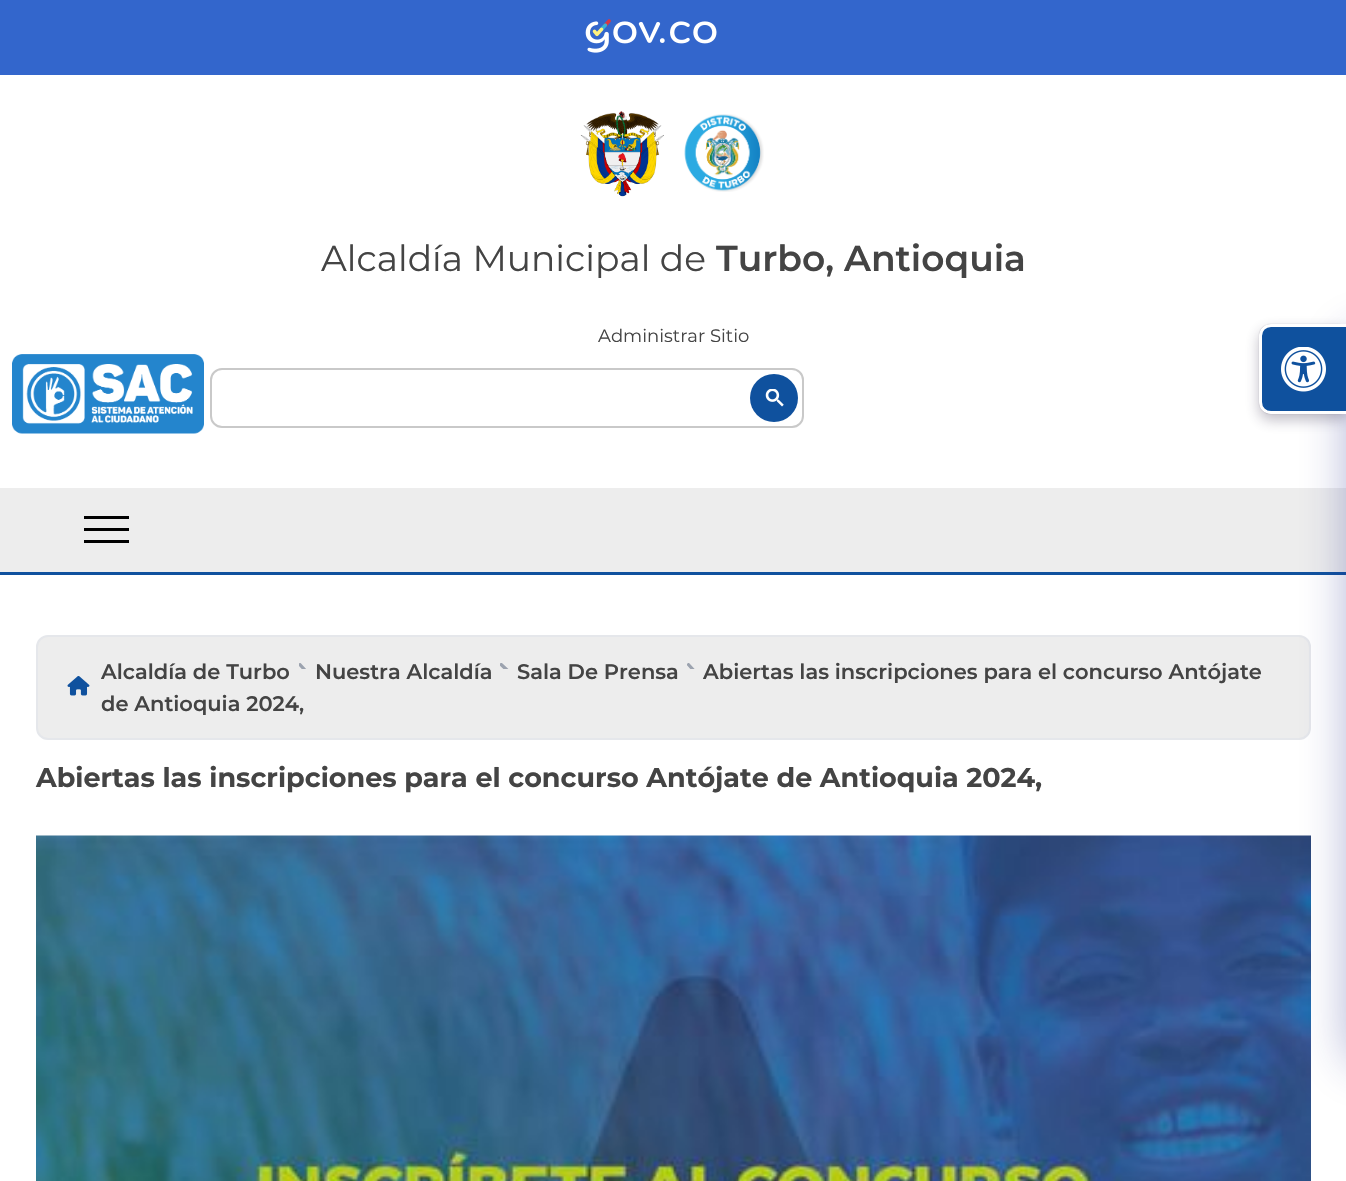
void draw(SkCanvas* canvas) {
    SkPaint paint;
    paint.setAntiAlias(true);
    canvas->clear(0xFFFFFFFF);
    paint.setColor(0xFF3366CC);
    canvas->drawRect(SkRect::MakeXYWH(0, 0, 1346, 75), paint);
    canvas->drawImageRect(SkImages::DeferredFromEncodedData(SkData::MakeFromFileName("img1.png")), SkRect::MakeXYWH(585, 19, 132, 34), SkSamplingOptions());
    canvas->drawImageRect(SkImages::DeferredFromEncodedData(SkData::MakeFromFileName("img2.png")), SkRect::MakeXYWH(580, 111, 84, 86), SkSamplingOptions());
    canvas->drawImageRect(SkImages::DeferredFromEncodedData(SkData::MakeFromFileName("img3.png")), SkRect::MakeXYWH(684, 114, 80, 78), SkSamplingOptions());
    SkFont font1(fontMgr->matchFamilyStyle("Montserrat", SkFontStyle::Normal()), 36);
    font1.setSubpixel(true);
    paint.setColor(0xFF444444);
    canvas->drawString("Alcaldía Municipal de", 321, 271, font1, paint);
    SkFont font2(fontMgr->matchFamilyStyle("Montserrat", SkFontStyle(600, SkFontStyle::kNormal_Width, SkFontStyle::kUpright_Slant)), 36);
    font2.setSubpixel(true);
    canvas->drawString("Turbo, Antioquia", 716, 271, font2, paint);
    SkFont font3(fontMgr->matchFamilyStyle("Montserrat", SkFontStyle::Normal()), 18);
    font3.setSubpixel(true);
    canvas->drawString("Administrar Sitio", 598, 342, font3, paint);
    paint.setStyle(SkPaint::kStroke_Style);
    paint.setStrokeWidth(2);
    paint.setColor(0xFFC9C9C9);
    canvas->drawRoundRect(SkRect::MakeXYWH(211, 369, 592, 58), 11, 11, paint);
    paint.setStyle(SkPaint::kFill_Style);
    paint.setColor(0xFF0F519E);
    canvas->drawCircle(774, 398, 24, paint);
    canvas->drawImageRect(SkImages::DeferredFromEncodedData(SkData::MakeFromFileName("img4.png")), SkRect::MakeXYWH(765, 389, 19, 18), SkSamplingOptions());
    canvas->drawImageRect(SkImages::DeferredFromEncodedData(SkData::MakeFromFileName("img5.png")), SkRect::MakeXYWH(12, 354, 192, 80), SkSamplingOptions());
    paint.setColor(0xFFEDEDED);
    canvas->drawRect(SkRect::MakeXYWH(0, 488, 1346, 84), paint);
    paint.setColor(0xFF0F519E);
    canvas->drawRect(SkRect::MakeXYWH(0, 572, 1346, 3), paint);
    paint.setColor(0xFF000000);
    canvas->drawRect(SkRect::MakeXYWH(84, 516, 45, 3), paint);
    canvas->drawRect(SkRect::MakeXYWH(84, 528, 45, 3), paint);
    canvas->drawRect(SkRect::MakeXYWH(84, 540, 45, 3), paint);
    paint.setColor(0xFFEDEDED);
    canvas->drawRoundRect(SkRect::MakeXYWH(37, 636, 1273, 103), 11, 11, paint);
    paint.setStyle(SkPaint::kStroke_Style);
    paint.setColor(0xFFE5E7EB);
    canvas->drawRoundRect(SkRect::MakeXYWH(37, 636, 1273, 103), 11, 11, paint);
    canvas->drawImageRect(SkImages::DeferredFromEncodedData(SkData::MakeFromFileName("img6.png")), SkRect::MakeXYWH(67, 676, 23, 20), SkSamplingOptions());
    SkFont font4(fontMgr->matchFamilyStyle("Montserrat", SkFontStyle(600, SkFontStyle::kNormal_Width, SkFontStyle::kUpright_Slant)), 21);
    font4.setSubpixel(true);
    paint.setStyle(SkPaint::kFill_Style);
    paint.setColor(0xFF444444);
    canvas->drawString("Alcaldía de Turbo", 101, 679, font4, paint);
    canvas->drawImageRect(SkImages::DeferredFromEncodedData(SkData::MakeFromFileName("img7.png")), SkRect::MakeXYWH(299, 663, 7, 6), SkSamplingOptions());
    canvas->drawString("Nuestra Alcaldía", 315, 679, font4, paint);
    canvas->drawImageRect(SkImages::DeferredFromEncodedData(SkData::MakeFromFileName("img8.png")), SkRect::MakeXYWH(500, 663, 9, 6), SkSamplingOptions());
    canvas->drawString("Sala De Prensa", 517, 679, font4, paint);
    canvas->drawImageRect(SkImages::DeferredFromEncodedData(SkData::MakeFromFileName("img9.png")), SkRect::MakeXYWH(687, 663, 8, 6), SkSamplingOptions());
    canvas->drawString("Abiertas las inscripciones para el concurso Antójate", 703, 679, font4, paint);
    canvas->drawString("de Antioquia 2024,", 101, 711, font4, paint);
    SkFont font5(fontMgr->matchFamilyStyle("Montserrat", SkFontStyle::Bold()), 27);
    font5.setSubpixel(true);
    canvas->drawString("Abiertas las inscripciones para el concurso Antójate de Antioquia 2024,", 36, 787, font5, paint);
    canvas->drawImageRect(SkImages::DeferredFromEncodedData(SkData::MakeFromFileName("img10.png")), SkRect::MakeXYWH(36, 835, 1275, 346), SkSamplingOptions());
    paint.setColor(0x5E1F2687);
    paint.setMaskFilter(SkMaskFilter::MakeBlur(kNormal_SkBlurStyle, 24));
    canvas->drawRoundRect(SkRect::MakeXYWH(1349, 336, 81, 726), 12, 12, paint);
    paint.setMaskFilter(nullptr);
    paint.setColor(0x4D2D2342);
    paint.setMaskFilter(SkMaskFilter::MakeBlur(kNormal_SkBlurStyle, 7));
    canvas->drawRoundRect(SkRect::MakeXYWH(1259, 330, 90, 90), 12, 12, paint);
    paint.setMaskFilter(nullptr);
    paint.setColor(0x662D2342);
    paint.setMaskFilter(SkMaskFilter::MakeBlur(kNormal_SkBlurStyle, 0.5f));
    canvas->drawRoundRect(SkRect::MakeXYWH(1259, 324, 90, 90), 12, 12, paint);
    paint.setMaskFilter(nullptr);
    paint.setColor(0xFF0F519E);
    canvas->drawPath(SkPathBuilder().moveTo(1271, 325.5f).lineTo(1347.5f, 325.5f).lineTo(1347.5f, 412.5f).lineTo(1271, 412.5f).cubicTo(1265, 412.5f, 1260.5f, 408, 1260.5f, 402).lineTo(1260.5f, 336).cubicTo(1260.5f, 330, 1265, 325.5f, 1271, 325.5f).close().detach(), paint);
    paint.setStyle(SkPaint::kStroke_Style);
    paint.setStrokeWidth(3);
    paint.setColor(0xFFFFFFFF);
    canvas->drawPath(SkPathBuilder().moveTo(1271, 325.5f).lineTo(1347.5f, 325.5f).lineTo(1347.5f, 412.5f).lineTo(1271, 412.5f).cubicTo(1265, 412.5f, 1260.5f, 408, 1260.5f, 402).lineTo(1260.5f, 336).cubicTo(1260.5f, 330, 1265, 325.5f, 1271, 325.5f).close().detach(), paint);
    canvas->drawImageRect(SkImages::DeferredFromEncodedData(SkData::MakeFromFileName("img11.png")), SkRect::MakeXYWH(1281, 347, 45, 45), SkSamplingOptions());
}
